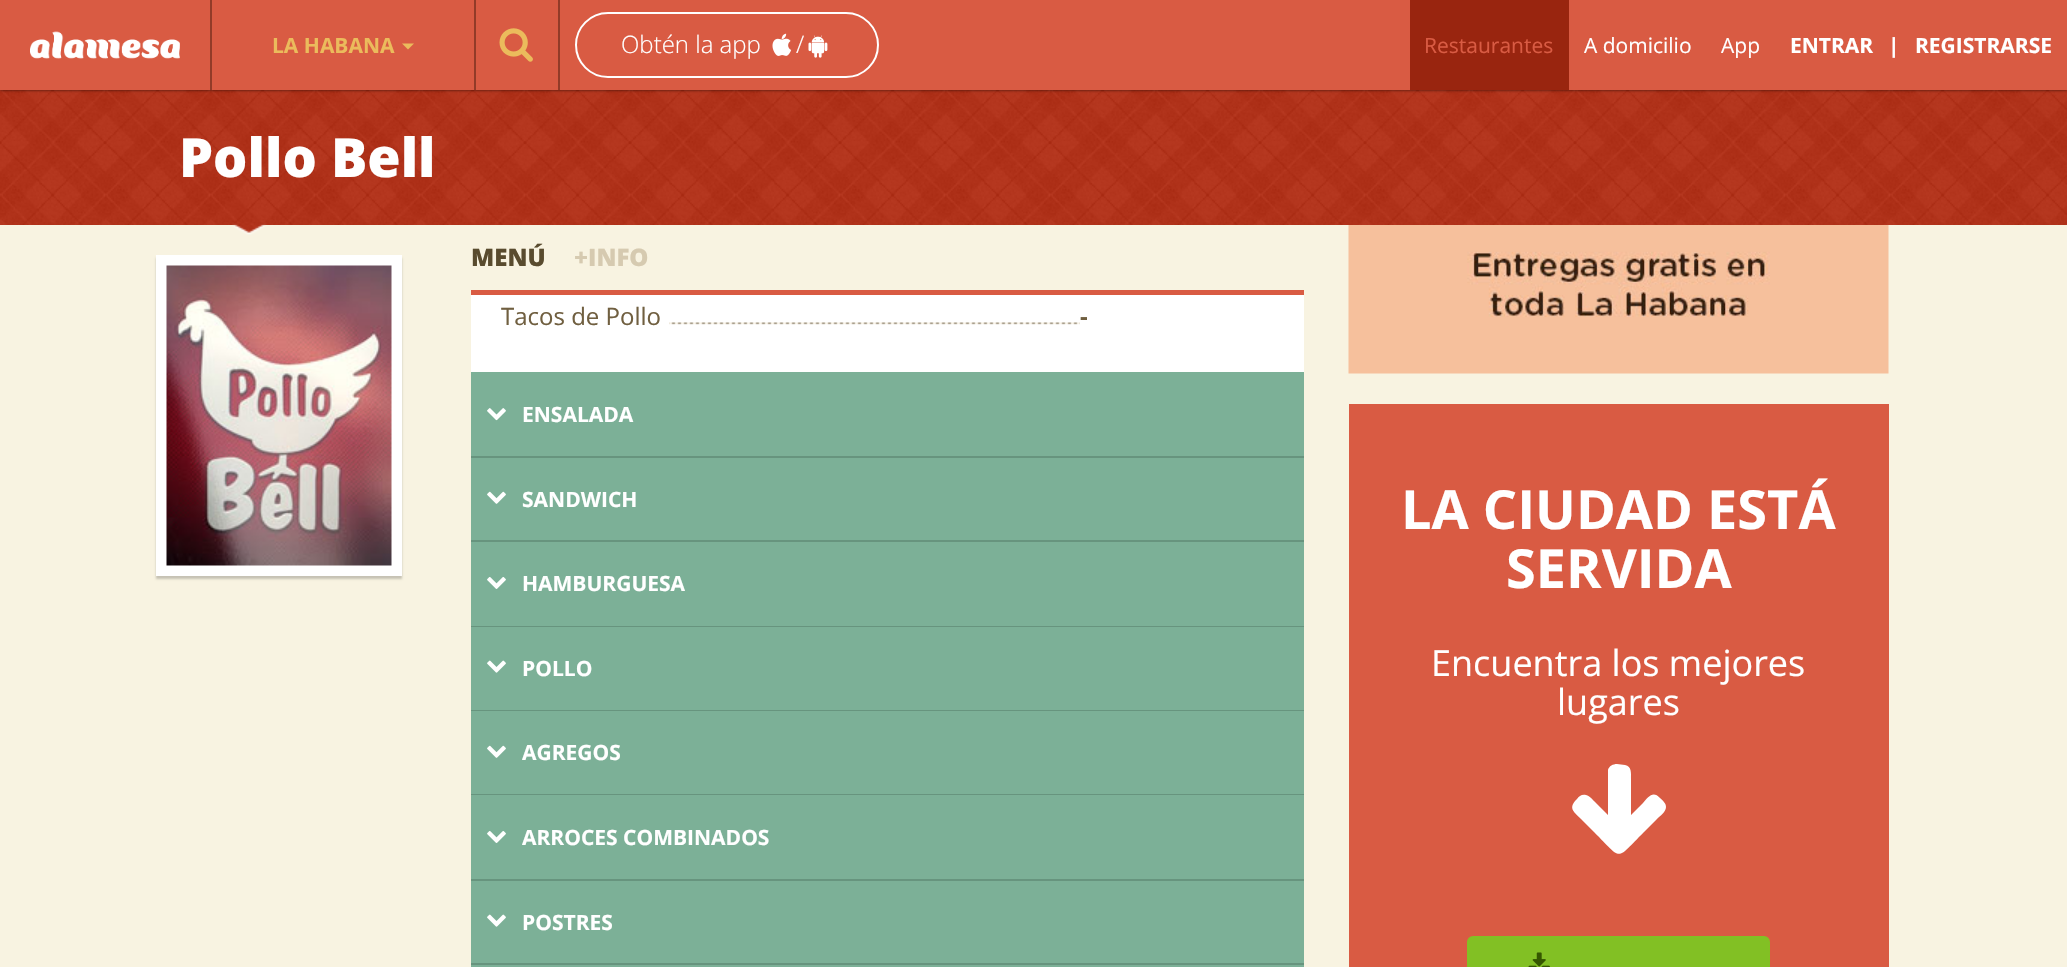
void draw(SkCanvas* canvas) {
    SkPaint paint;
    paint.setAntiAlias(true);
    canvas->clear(0xFFF8F3E1);
    canvas->drawImageRect(SkImages::DeferredFromEncodedData(SkData::MakeFromFileName("img5.png")), SkRect::MakeXYWH(0, 90, 2067, 135), SkSamplingOptions());
    paint.setColor(0xB3000000);
    paint.setMaskFilter(SkMaskFilter::MakeBlur(kNormal_SkBlurStyle, 1.5f));
    canvas->drawRect(SkRect::MakeXYWH(0, 0, 2067, 90), paint);
    paint.setMaskFilter(nullptr);
    paint.setColor(0xFFD95B43);
    canvas->drawRect(SkRect::MakeXYWH(0, 0, 2067, 90), paint);
    canvas->drawImageRect(SkImages::DeferredFromEncodedData(SkData::MakeFromFileName("img1.png")), SkRect::MakeXYWH(30, 31, 150, 28), SkSamplingOptions());
    paint.setColor(0xFF923B28);
    canvas->drawRect(SkRect::MakeXYWH(474, 0, 2, 90), paint);
    canvas->drawRect(SkRect::MakeXYWH(210, 0, 2, 90), paint);
    SkFont font1(fontMgr->matchFamilyStyle("Open Sans", SkFontStyle::Bold()), 21);
    font1.setSubpixel(true);
    paint.setColor(0xFFEBBB5C);
    canvas->drawString("LA HABANA", 272, 53, font1, paint);
    canvas->drawPath(SkPathBuilder().moveTo(402, 43.5f).lineTo(414, 43.5f).lineTo(408, 49.5f).close().detach(), paint);
    paint.setColor(0xFF923B28);
    canvas->drawRect(SkRect::MakeXYWH(558, 0, 2, 90), paint);
    canvas->drawImageRect(SkImages::DeferredFromEncodedData(SkData::MakeFromFileName("img2.png")), SkRect::MakeXYWH(499, 28, 34, 34), SkSamplingOptions());
    paint.setStyle(SkPaint::kStroke_Style);
    paint.setStrokeWidth(2);
    paint.setColor(0xFFFFFFFF);
    canvas->drawRoundRect(SkRect::MakeXYWH(576, 13, 302, 64), 32, 32, paint);
    SkFont font2(fontMgr->matchFamilyStyle("Open Sans", SkFontStyle(300, SkFontStyle::kNormal_Width, SkFontStyle::kUpright_Slant)), 24);
    font2.setSubpixel(true);
    paint.setStyle(SkPaint::kFill_Style);
    canvas->drawString("Obtén la app", 621, 53, font2, paint);
    canvas->drawImageRect(SkImages::DeferredFromEncodedData(SkData::MakeFromFileName("img3.png")), SkRect::MakeXYWH(772, 33, 20, 23), SkSamplingOptions());
    canvas->drawString("/", 796, 53, font2, paint);
    canvas->drawImageRect(SkImages::DeferredFromEncodedData(SkData::MakeFromFileName("img4.png")), SkRect::MakeXYWH(808, 35, 20, 23), SkSamplingOptions());
    paint.setColor(0xFF99250F);
    canvas->drawRect(SkRect::MakeXYWH(1410, 0, 159, 90), paint);
    SkFont font3(fontMgr->matchFamilyStyle("Open Sans", SkFontStyle::Normal()), 21);
    font3.setSubpixel(true);
    paint.setColor(0xFFD95B43);
    canvas->drawString("Restaurantes", 1424, 53, font3, paint);
    paint.setColor(0xFFFFFFFF);
    canvas->drawString("A domicilio", 1584, 53, font3, paint);
    canvas->drawString("App", 1721, 53, font3, paint);
    canvas->drawString("ENTRAR", 1790, 53, font1, paint);
    canvas->drawString("|", 1888, 53, font1, paint);
    canvas->drawString("REGISTRARSE", 1915, 53, font1, paint);
    SkFont font4(fontMgr->matchFamilyStyle("Open Sans", SkFontStyle(800, SkFontStyle::kNormal_Width, SkFontStyle::kUpright_Slant)), 54);
    font4.setSubpixel(true);
    canvas->drawString("Pollo Bell", 179, 177, font4, paint);
    canvas->drawImageRect(SkImages::DeferredFromEncodedData(SkData::MakeFromFileName("img6.png")), SkRect::MakeXYWH(232, 223, 35, 12), SkSamplingOptions());
    paint.setColor(0x33000000);
    paint.setMaskFilter(SkMaskFilter::MakeBlur(kNormal_SkBlurStyle, 1));
    canvas->drawRect(SkRect::MakeXYWH(156, 258, 246, 321), paint);
    paint.setMaskFilter(nullptr);
    paint.setStyle(SkPaint::kStroke_Style);
    paint.setStrokeWidth(11);
    paint.setColor(0xFFFFFFFF);
    canvas->drawRect(SkRect::MakeXYWH(161.5f, 260.5f, 235, 310), paint);
    canvas->drawImageRect(SkImages::DeferredFromEncodedData(SkData::MakeFromFileName("img7.png")), SkRect::MakeXYWH(166, 265, 226, 301), SkSamplingOptions());
    paint.setStyle(SkPaint::kFill_Style);
    paint.setColor(0xFFD95B43);
    canvas->drawRect(SkRect::MakeXYWH(471, 290, 833, 5), paint);
    SkFont font5(fontMgr->matchFamilyStyle("Open Sans", SkFontStyle(800, SkFontStyle::kNormal_Width, SkFontStyle::kUpright_Slant)), 24);
    font5.setSubpixel(true);
    paint.setColor(0xFF594B2E);
    canvas->drawString("MENÚ", 471, 266, font5, paint);
    paint.setColor(0xFFD6CAB0);
    canvas->drawString("+INFO", 574, 266, font5, paint);
    paint.setColor(0xFFFFFFFF);
    canvas->drawRect(SkRect::MakeXYWH(471, 295, 833, 77), paint);
    canvas->drawImageRect(SkImages::DeferredFromEncodedData(SkData::MakeFromFileName("img8.png")), SkRect::MakeXYWH(669, 322, 411, 3), SkSamplingOptions());
    SkFont font6(fontMgr->matchFamilyStyle("Open Sans", SkFontStyle::Normal()), 24);
    font6.setSubpixel(true);
    paint.setColor(0xFF705F40);
    canvas->drawString("Tacos de Pollo", 501, 325, font6, paint);
    SkFont font7(fontMgr->matchFamilyStyle("Open Sans", SkFontStyle::Bold()), 24);
    font7.setSubpixel(true);
    canvas->drawString("-", 1080, 325, font7, paint);
    paint.setColor(0xFF7CB097);
    canvas->drawRect(SkRect::MakeXYWH(471, 372, 833, 84), paint);
    paint.setColor(0xFF67947E);
    canvas->drawRect(SkRect::MakeXYWH(471, 456, 833, 2), paint);
    canvas->drawImageRect(SkImages::DeferredFromEncodedData(SkData::MakeFromFileName("img9.png")), SkRect::MakeXYWH(487, 408, 19, 13), SkSamplingOptions());
    paint.setColor(0xFFFFFFFF);
    canvas->drawString("ENSALADA", 522, 422, font1, paint);
    paint.setColor(0xFF7CB097);
    canvas->drawRect(SkRect::MakeXYWH(471, 458, 833, 82), paint);
    paint.setColor(0xFF67947E);
    canvas->drawRect(SkRect::MakeXYWH(471, 540, 833, 2), paint);
    canvas->drawImageRect(SkImages::DeferredFromEncodedData(SkData::MakeFromFileName("img10.png")), SkRect::MakeXYWH(487, 491, 19, 13), SkSamplingOptions());
    paint.setColor(0xFFFFFFFF);
    canvas->drawString("SANDWICH", 522, 507, font1, paint);
    paint.setColor(0xFF7CB097);
    canvas->drawRect(SkRect::MakeXYWH(471, 542, 833, 84), paint);
    paint.setColor(0xFF67947E);
    canvas->drawRect(SkRect::MakeXYWH(471, 626, 833, 1), paint);
    canvas->drawImageRect(SkImages::DeferredFromEncodedData(SkData::MakeFromFileName("img11.png")), SkRect::MakeXYWH(487, 577, 19, 12), SkSamplingOptions());
    paint.setColor(0xFFFFFFFF);
    canvas->drawString("HAMBURGUESA", 522, 591, font1, paint);
    paint.setColor(0xFF7CB097);
    canvas->drawRect(SkRect::MakeXYWH(471, 627, 833, 83), paint);
    paint.setColor(0xFF67947E);
    canvas->drawRect(SkRect::MakeXYWH(471, 710, 833, 1), paint);
    canvas->drawImageRect(SkImages::DeferredFromEncodedData(SkData::MakeFromFileName("img12.png")), SkRect::MakeXYWH(487, 660, 19, 13), SkSamplingOptions());
    paint.setColor(0xFFFFFFFF);
    canvas->drawString("POLLO", 522, 676, font1, paint);
    paint.setColor(0xFF7CB097);
    canvas->drawRect(SkRect::MakeXYWH(471, 711, 833, 83), paint);
    paint.setColor(0xFF67947E);
    canvas->drawRect(SkRect::MakeXYWH(471, 794, 833, 1), paint);
    canvas->drawImageRect(SkImages::DeferredFromEncodedData(SkData::MakeFromFileName("img13.png")), SkRect::MakeXYWH(487, 745, 19, 13), SkSamplingOptions());
    paint.setColor(0xFFFFFFFF);
    canvas->drawString("AGREGOS", 522, 760, font1, paint);
    paint.setColor(0xFF7CB097);
    canvas->drawRect(SkRect::MakeXYWH(471, 795, 833, 84), paint);
    paint.setColor(0xFF67947E);
    canvas->drawRect(SkRect::MakeXYWH(471, 879, 833, 2), paint);
    canvas->drawImageRect(SkImages::DeferredFromEncodedData(SkData::MakeFromFileName("img14.png")), SkRect::MakeXYWH(487, 831, 19, 12), SkSamplingOptions());
    paint.setColor(0xFFFFFFFF);
    canvas->drawString("ARROCES COMBINADOS", 522, 845, font1, paint);
    paint.setColor(0xFF7CB097);
    canvas->drawRect(SkRect::MakeXYWH(471, 881, 833, 82), paint);
    paint.setColor(0xFF67947E);
    canvas->drawRect(SkRect::MakeXYWH(471, 963, 833, 2), paint);
    canvas->drawImageRect(SkImages::DeferredFromEncodedData(SkData::MakeFromFileName("img15.png")), SkRect::MakeXYWH(487, 914, 19, 13), SkSamplingOptions());
    paint.setColor(0xFFFFFFFF);
    canvas->drawString("POSTRES", 522, 930, font1, paint);
    paint.setColor(0xFF7CB097);
    canvas->drawRect(SkRect::MakeXYWH(471, 965, 833, 2), paint);
    canvas->drawImageRect(SkImages::DeferredFromEncodedData(SkData::MakeFromFileName("img16.png")), SkRect::MakeXYWH(1348, 225, 541, 149), SkSamplingOptions());
    paint.setColor(0xFFD95B43);
    canvas->drawRect(SkRect::MakeXYWH(1349, 404, 540, 563), paint);
    SkFont font8(fontMgr->matchFamilyStyle("Open Sans", SkFontStyle::Bold()), 54);
    font8.setSubpixel(true);
    paint.setColor(0xFFFFFFFF);
    canvas->drawString("LA CIUDAD ESTÁ", 1401, 529, font8, paint);
    canvas->drawString("SERVIDA", 1506, 588, font8, paint);
    SkFont font9(fontMgr->matchFamilyStyle("Open Sans", SkFontStyle::Normal()), 36);
    font9.setSubpixel(true);
    canvas->drawString("Encuentra los mejores", 1431, 676, font9, paint);
    canvas->drawString("lugares", 1557, 715, font9, paint);
    canvas->drawPath(SkPathBuilder().moveTo(1666, 807).cubicTo(1666, 812, 1660, 816, 1657, 819).lineTo(1644, 832).cubicTo(1615, 861, 1623, 861, 1594, 832).lineTo(1581, 819).cubicTo(1573, 811, 1568, 808, 1577, 799).cubicTo(1579, 796, 1582, 794, 1586, 795).cubicTo(1590, 796, 1593, 800, 1596, 803).lineTo(1608, 815).lineTo(1608, 770).cubicTo(1609, 766, 1613, 764, 1617, 764).lineTo(1625, 765).cubicTo(1632, 766, 1631, 774, 1631, 779).lineTo(1631, 815).lineTo(1643, 803).cubicTo(1648, 797, 1653, 790, 1660, 798).cubicTo(1663, 801, 1666, 803, 1666, 807).close().detach(), paint);
    paint.setColor(0xFF82C024);
    canvas->drawRoundRect(SkRect::MakeXYWH(1468, 937, 301, 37), 5, 5, paint);
    paint.setStyle(SkPaint::kStroke_Style);
    paint.setStrokeWidth(2);
    canvas->drawRoundRect(SkRect::MakeXYWH(1468, 937, 301, 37), 5, 5, paint);
    canvas->drawImageRect(SkImages::DeferredFromEncodedData(SkData::MakeFromFileName("img17.png")), SkRect::MakeXYWH(1528, 952, 22, 15), SkSamplingOptions());
}
